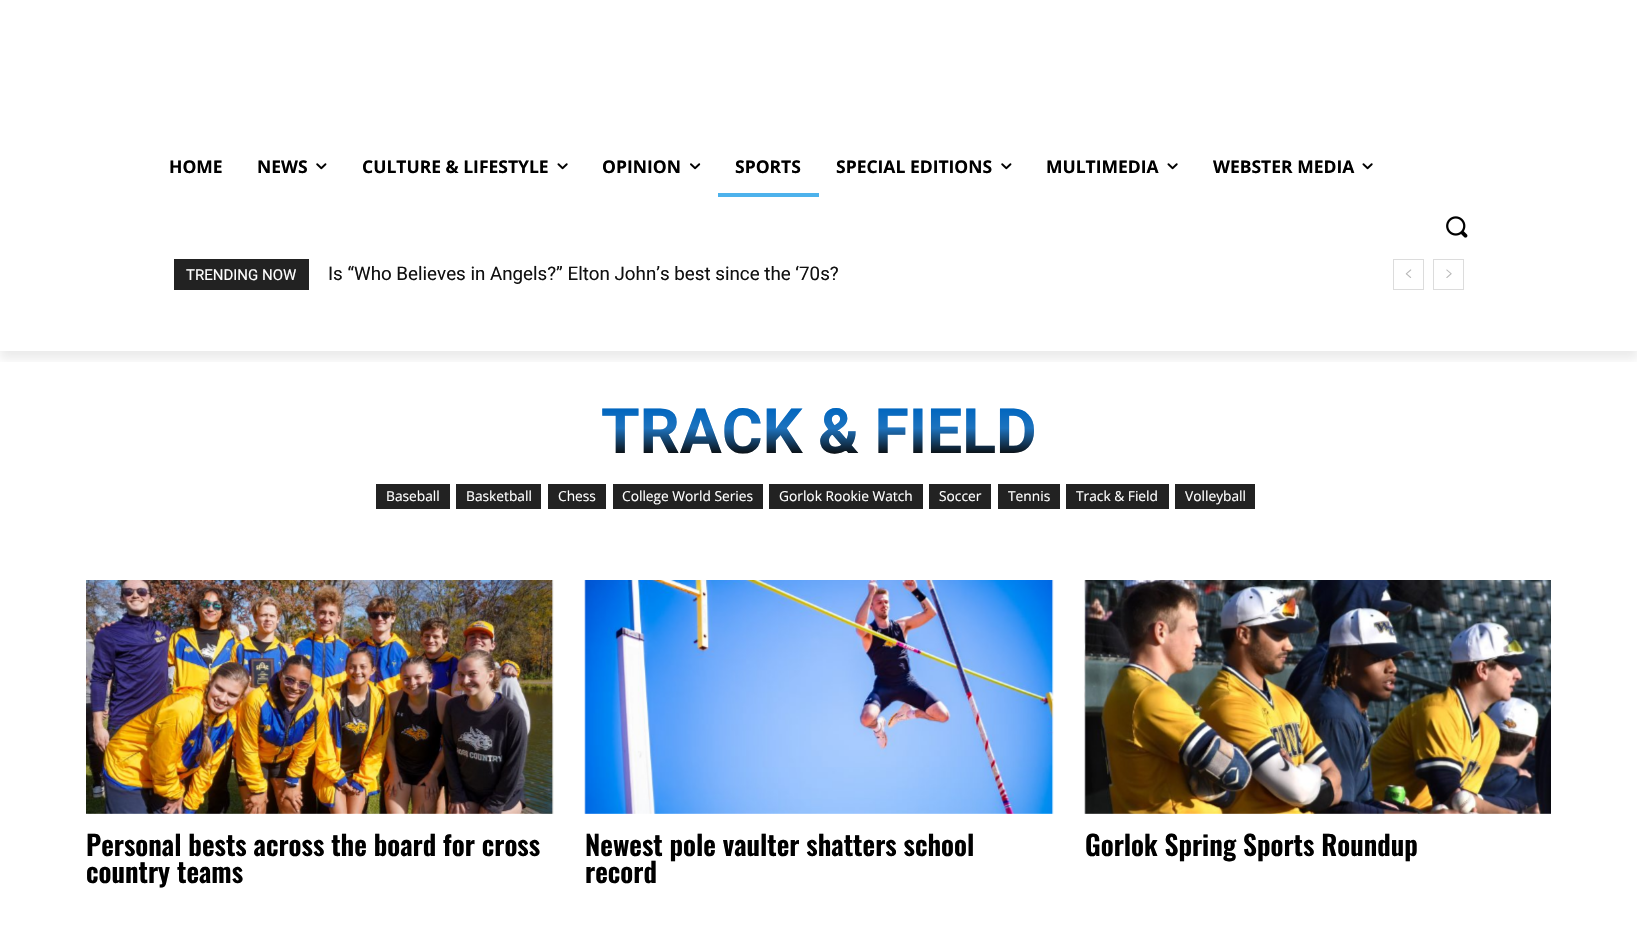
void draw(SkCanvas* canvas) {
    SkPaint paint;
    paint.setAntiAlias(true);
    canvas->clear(0xFFFFFFFF);
    paint.setColor(0xFF222222);
    canvas->drawRect(SkRect::MakeXYWH(174, 259, 135, 31), paint);
    paint.setStyle(SkPaint::kStroke_Style);
    paint.setStrokeWidth(1);
    paint.setColor(0xFFDCDCDC);
    canvas->drawRect(SkRect::MakeXYWH(1393.5f, 259.5f, 30, 30), paint);
    canvas->drawImageRect(SkImages::DeferredFromEncodedData(SkData::MakeFromFileName("img5.png")), SkRect::MakeXYWH(1405, 269, 7, 9), SkSamplingOptions());
    canvas->drawRect(SkRect::MakeXYWH(1433.5f, 259.5f, 30, 30), paint);
    canvas->drawImageRect(SkImages::DeferredFromEncodedData(SkData::MakeFromFileName("img6.png")), SkRect::MakeXYWH(1446, 269, 6, 9), SkSamplingOptions());
    canvas->save();
    canvas->clipRect(SkRect::MakeXYWH(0, 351, 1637, 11));
    paint.setStyle(SkPaint::kFill_Style);
    paint.setColor(0x14000000);
    paint.setMaskFilter(SkMaskFilter::MakeBlur(kNormal_SkBlurStyle, 5));
    canvas->drawRect(SkRect::MakeXYWH(0, -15, 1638, 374), paint);
    paint.setMaskFilter(nullptr);
    canvas->restore();
    SkFont font1(fontMgr->matchFamilyStyle("Open Sans", SkFontStyle::Bold()), 17.5f);
    font1.setSubpixel(true);
    paint.setColor(0xFF000000);
    canvas->drawString("HOME", 169, 173, font1, paint);
    canvas->drawString("NEWS", 257, 173, font1, paint);
    canvas->drawImageRect(SkImages::DeferredFromEncodedData(SkData::MakeFromFileName("img1.png")), SkRect::MakeXYWH(316, 163, 11, 7), SkSamplingOptions());
    canvas->drawString("CULTURE & LIFESTYLE", 362, 173, font1, paint);
    canvas->drawImageRect(SkImages::DeferredFromEncodedData(SkData::MakeFromFileName("img2.png")), SkRect::MakeXYWH(557, 163, 11, 7), SkSamplingOptions());
    canvas->drawString("OPINION", 602, 173, font1, paint);
    canvas->drawImageRect(SkImages::DeferredFromEncodedData(SkData::MakeFromFileName("img3.png")), SkRect::MakeXYWH(690, 163, 11, 7), SkSamplingOptions());
    canvas->drawString("SPORTS", 735, 173, font1, paint);
    paint.setColor(0xFF4DB2EC);
    canvas->drawRect(SkRect::MakeXYWH(718, 193, 101, 4), paint);
    paint.setColor(0xFF000000);
    canvas->drawString("SPECIAL EDITIONS", 836, 173, font1, paint);
    canvas->drawImageRect(SkImages::DeferredFromEncodedData(SkData::MakeFromFileName("img1.png")), SkRect::MakeXYWH(1001, 163, 11, 7), SkSamplingOptions());
    canvas->drawString("MULTIMEDIA", 1046, 173, font1, paint);
    canvas->drawImageRect(SkImages::DeferredFromEncodedData(SkData::MakeFromFileName("img2.png")), SkRect::MakeXYWH(1167, 163, 11, 7), SkSamplingOptions());
    canvas->drawString("WEBSTER MEDIA", 1213, 173, font1, paint);
    canvas->drawImageRect(SkImages::DeferredFromEncodedData(SkData::MakeFromFileName("img2.png")), SkRect::MakeXYWH(1362, 163, 11, 7), SkSamplingOptions());
    canvas->drawImageRect(SkImages::DeferredFromEncodedData(SkData::MakeFromFileName("img4.png")), SkRect::MakeXYWH(1446, 216, 22, 22), SkSamplingOptions());
    SkFont font2(fontMgr->matchFamilyStyle("Roboto", SkFontStyle::Normal()), 15);
    font2.setSubpixel(true);
    paint.setColor(0xFFFFFFFF);
    canvas->drawString("TRENDING NOW", 186, 280, font2, paint);
    SkFont font3(fontMgr->matchFamilyStyle("Roboto", SkFontStyle::Normal()), 18.75f);
    font3.setSubpixel(true);
    paint.setColor(0xFF111111);
    canvas->drawString("Is “Who Believes in Angels?” Elton John’s best since the ‘70s?", 328, 280, font3, paint);
    SkFont font4(fontMgr->matchFamilyStyle("Roboto", SkFontStyle::Bold()), 62.5f);
    font4.setSubpixel(true);
    {
        const SkColor colors[] = {0xFF0A0A0A, 0xFF1E73BE, 0xFF0066BF};
        const float stops[] = {0, 0.57f, 1};
        const SkPoint ends[] = {{819, 455}, {819, 408}};
        paint.setShader(SkGradientShader::MakeLinear(ends, colors, stops, 3, SkTileMode::kClamp));
        paint.setAlpha(255);
    }
    canvas->drawString("TRACK & FIELD", 601, 453, font4, paint);
    paint.setShader(nullptr);
    paint.setColor(0xFF222222);
    canvas->drawRect(SkRect::MakeXYWH(376, 484, 74, 25), paint);
    SkFont font5(fontMgr->matchFamilyStyle("Open Sans", SkFontStyle::Normal()), 13.75f);
    font5.setSubpixel(true);
    paint.setColor(0xFFFFFFFF);
    canvas->drawString("Baseball", 386, 501, font5, paint);
    paint.setColor(0xFF222222);
    canvas->drawRect(SkRect::MakeXYWH(456, 484, 85, 25), paint);
    paint.setColor(0xFFFFFFFF);
    canvas->drawString("Basketball", 466, 501, font5, paint);
    paint.setColor(0xFF222222);
    canvas->drawRect(SkRect::MakeXYWH(548, 484, 58, 25), paint);
    paint.setColor(0xFFFFFFFF);
    canvas->drawString("Chess", 558, 501, font5, paint);
    paint.setColor(0xFF222222);
    canvas->drawRect(SkRect::MakeXYWH(613, 484, 150, 25), paint);
    paint.setColor(0xFFFFFFFF);
    canvas->drawString("College World Series", 622, 501, font5, paint);
    paint.setColor(0xFF222222);
    canvas->drawRect(SkRect::MakeXYWH(769, 484, 154, 25), paint);
    paint.setColor(0xFFFFFFFF);
    canvas->drawString("Gorlok Rookie Watch", 779, 501, font5, paint);
    paint.setColor(0xFF222222);
    canvas->drawRect(SkRect::MakeXYWH(929, 484, 62, 25), paint);
    paint.setColor(0xFFFFFFFF);
    canvas->drawString("Soccer", 939, 501, font5, paint);
    paint.setColor(0xFF222222);
    canvas->drawRect(SkRect::MakeXYWH(998, 484, 62, 25), paint);
    paint.setColor(0xFFFFFFFF);
    canvas->drawString("Tennis", 1008, 501, font5, paint);
    paint.setColor(0xFF222222);
    canvas->drawRect(SkRect::MakeXYWH(1066, 484, 103, 25), paint);
    paint.setColor(0xFFFFFFFF);
    canvas->drawString("Track & Field", 1076, 501, font5, paint);
    paint.setColor(0xFF222222);
    canvas->drawRect(SkRect::MakeXYWH(1175, 484, 80, 25), paint);
    paint.setColor(0xFFFFFFFF);
    canvas->drawString("Volleyball", 1185, 501, font5, paint);
    canvas->drawImageRect(SkImages::DeferredFromEncodedData(SkData::MakeFromFileName("img7.png")), SkRect::MakeXYWH(86, 580, 468, 234), SkSamplingOptions());
    SkFont font6(fontMgr->matchFamilyStyle("Oswald", SkFontStyle(600, SkFontStyle::kNormal_Width, SkFontStyle::kUpright_Slant)), 27.5f);
    font6.setSubpixel(true);
    paint.setColor(0xFF000000);
    canvas->drawString("Personal bests across the board for cross", 86, 856, font6, paint);
    canvas->drawString("country teams", 86, 883, font6, paint);
    canvas->drawImageRect(SkImages::DeferredFromEncodedData(SkData::MakeFromFileName("img8.png")), SkRect::MakeXYWH(584, 580, 470, 234), SkSamplingOptions());
    canvas->drawString("Newest pole vaulter shatters school", 585, 856, font6, paint);
    canvas->drawString("record", 585, 883, font6, paint);
    canvas->drawImageRect(SkImages::DeferredFromEncodedData(SkData::MakeFromFileName("img9.png")), SkRect::MakeXYWH(1084, 580, 467, 234), SkSamplingOptions());
    canvas->drawString("Gorlok Spring Sports Roundup", 1085, 856, font6, paint);
}
